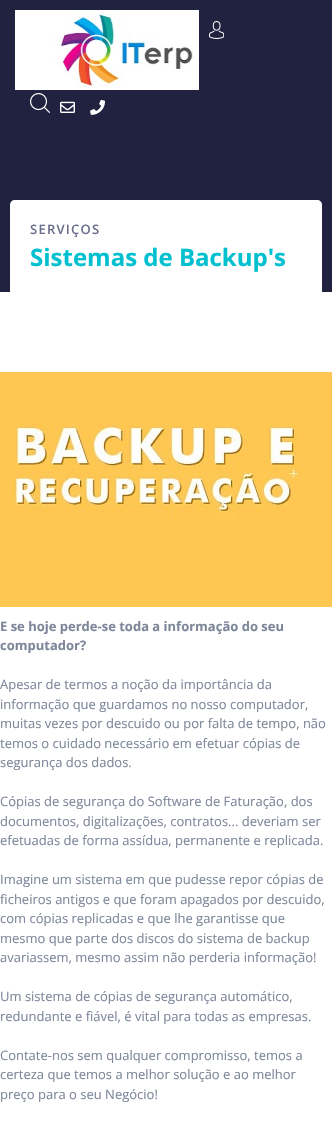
void draw(SkCanvas* canvas) {
    SkPaint paint;
    paint.setAntiAlias(true);
    auto spacedText = [&](const char* s, float x, float y, const SkFont& font, const SkPaint& ink, float letter, float word) {
        std::vector<SkGlyphID> glyphs(font.countText(s, strlen(s), SkTextEncoding::kUTF8));
        std::vector<float> xs(glyphs.size());
        font.textToGlyphs(s, strlen(s), SkTextEncoding::kUTF8, glyphs);
        font.getXPos(glyphs, xs, x);
        float extra = 0;
        for (size_t i = 0; i < glyphs.size(); i++) {
            xs[i] += extra;
            extra += letter + word * (glyphs[i] == font.unicharToGlyph(' '));
        }
        canvas->drawTextBlob(SkTextBlob::MakeFromPosHGlyphs(glyphs, xs, y, font), 0, 0, ink);
    };
    canvas->clear(0xFFFFFFFF);
    paint.setColor(0xFF21223F);
    canvas->drawRect(SkRect::MakeXYWH(0, 0, 332, 292), paint);
    paint.setColor(0xFFFFFFFF);
    canvas->drawRect(SkRect::MakeXYWH(15, 10, 184, 80), paint);
    canvas->drawImageRect(SkImages::DeferredFromEncodedData(SkData::MakeFromFileName("img1.png")), SkRect::MakeXYWH(54, 10, 139, 78), SkSamplingOptions());
    canvas->drawImageRect(SkImages::DeferredFromEncodedData(SkData::MakeFromFileName("img2.png")), SkRect::MakeXYWH(209, 21, 15, 18), SkSamplingOptions());
    canvas->drawImageRect(SkImages::DeferredFromEncodedData(SkData::MakeFromFileName("img3.png")), SkRect::MakeXYWH(30, 93, 20, 20), SkSamplingOptions());
    canvas->drawImageRect(SkImages::DeferredFromEncodedData(SkData::MakeFromFileName("img4.png")), SkRect::MakeXYWH(60, 101, 15, 12), SkSamplingOptions());
    canvas->drawImageRect(SkImages::DeferredFromEncodedData(SkData::MakeFromFileName("img5.png")), SkRect::MakeXYWH(90, 99, 15, 16), SkSamplingOptions());
    canvas->drawPath(SkPathBuilder().moveTo(15, 200).lineTo(317, 200).cubicTo(320, 200, 322, 202, 322, 205).lineTo(322, 292).lineTo(10, 292).lineTo(10, 205).cubicTo(10, 202, 12, 200, 15, 200).close().detach(), paint);
    SkFont font1(fontMgr->matchFamilyStyle("Open Sans", SkFontStyle(600, SkFontStyle::kNormal_Width, SkFontStyle::kUpright_Slant)), 13);
    font1.setSubpixel(true);
    paint.setColor(0xFF6C6D8B);
    spacedText("SERVIÇOS", 30, 234, font1, paint, 1.25f, 0);
    SkFont font2(fontMgr->matchFamilyStyle("Open Sans", SkFontStyle::Bold()), 24);
    font2.setSubpixel(true);
    paint.setColor(0xFF02C0D0);
    canvas->drawString("Sistemas de Backup's", 30, 266, font2, paint);
    canvas->drawImageRect(SkImages::DeferredFromEncodedData(SkData::MakeFromFileName("img6.png")), SkRect::MakeXYWH(0, 372, 332, 235), SkSamplingOptions());
    SkFont font3(fontMgr->matchFamilyStyle("Open Sans", SkFontStyle::Bold()), 13);
    font3.setSubpixel(true);
    paint.setColor(0xFF7E879A);
    canvas->drawString("E se hoje perde-se toda a informação do seu", 0, 631, font3, paint);
    canvas->drawString("computador?", 0, 650, font3, paint);
    SkFont font4(fontMgr->matchFamilyStyle("Open Sans", SkFontStyle::Normal()), 13);
    font4.setSubpixel(true);
    canvas->drawString("Apesar de termos a noção da importância da", 0, 689, font4, paint);
    canvas->drawString("informação que guardamos no nosso computador,", 0, 709, font4, paint);
    canvas->drawString("muitas vezes por descuido ou por falta de tempo, não", 0, 728, font4, paint);
    canvas->drawString("temos o cuidado necessário em efetuar cópias de", 0, 748, font4, paint);
    canvas->drawString("segurança dos dados.", 0, 767, font4, paint);
    canvas->drawString("Cópias de segurança do Software de Faturação, dos", 0, 806, font4, paint);
    canvas->drawString("documentos, digitalizações, contratos... deveriam ser", 0, 826, font4, paint);
    canvas->drawString("efetuadas de forma assídua, permanente e replicada.", 0, 845, font4, paint);
    canvas->drawString("Imagine um sistema em que pudesse repor cópias de", 0, 884, font4, paint);
    canvas->drawString("ficheiros antigos e que foram apagados por descuido,", 0, 904, font4, paint);
    canvas->drawString("com cópias replicadas e que lhe garantisse que", 0, 923, font4, paint);
    canvas->drawString("mesmo que parte dos discos do sistema de backup", 0, 943, font4, paint);
    canvas->drawString("avariassem, mesmo assim não perderia informação!", 0, 962, font4, paint);
    canvas->drawString("Um sistema de cópias de segurança automático,", 0, 1001, font4, paint);
    canvas->drawString("redundante e fiável, é vital para todas as empresas.", 0, 1021, font4, paint);
    canvas->drawString("Contate-nos sem qualquer compromisso, temos a", 0, 1060, font4, paint);
    canvas->drawString("certeza que temos a melhor solução e ao melhor", 0, 1079, font4, paint);
    canvas->drawString("preço para o seu Negócio!", 0, 1099, font4, paint);
}
